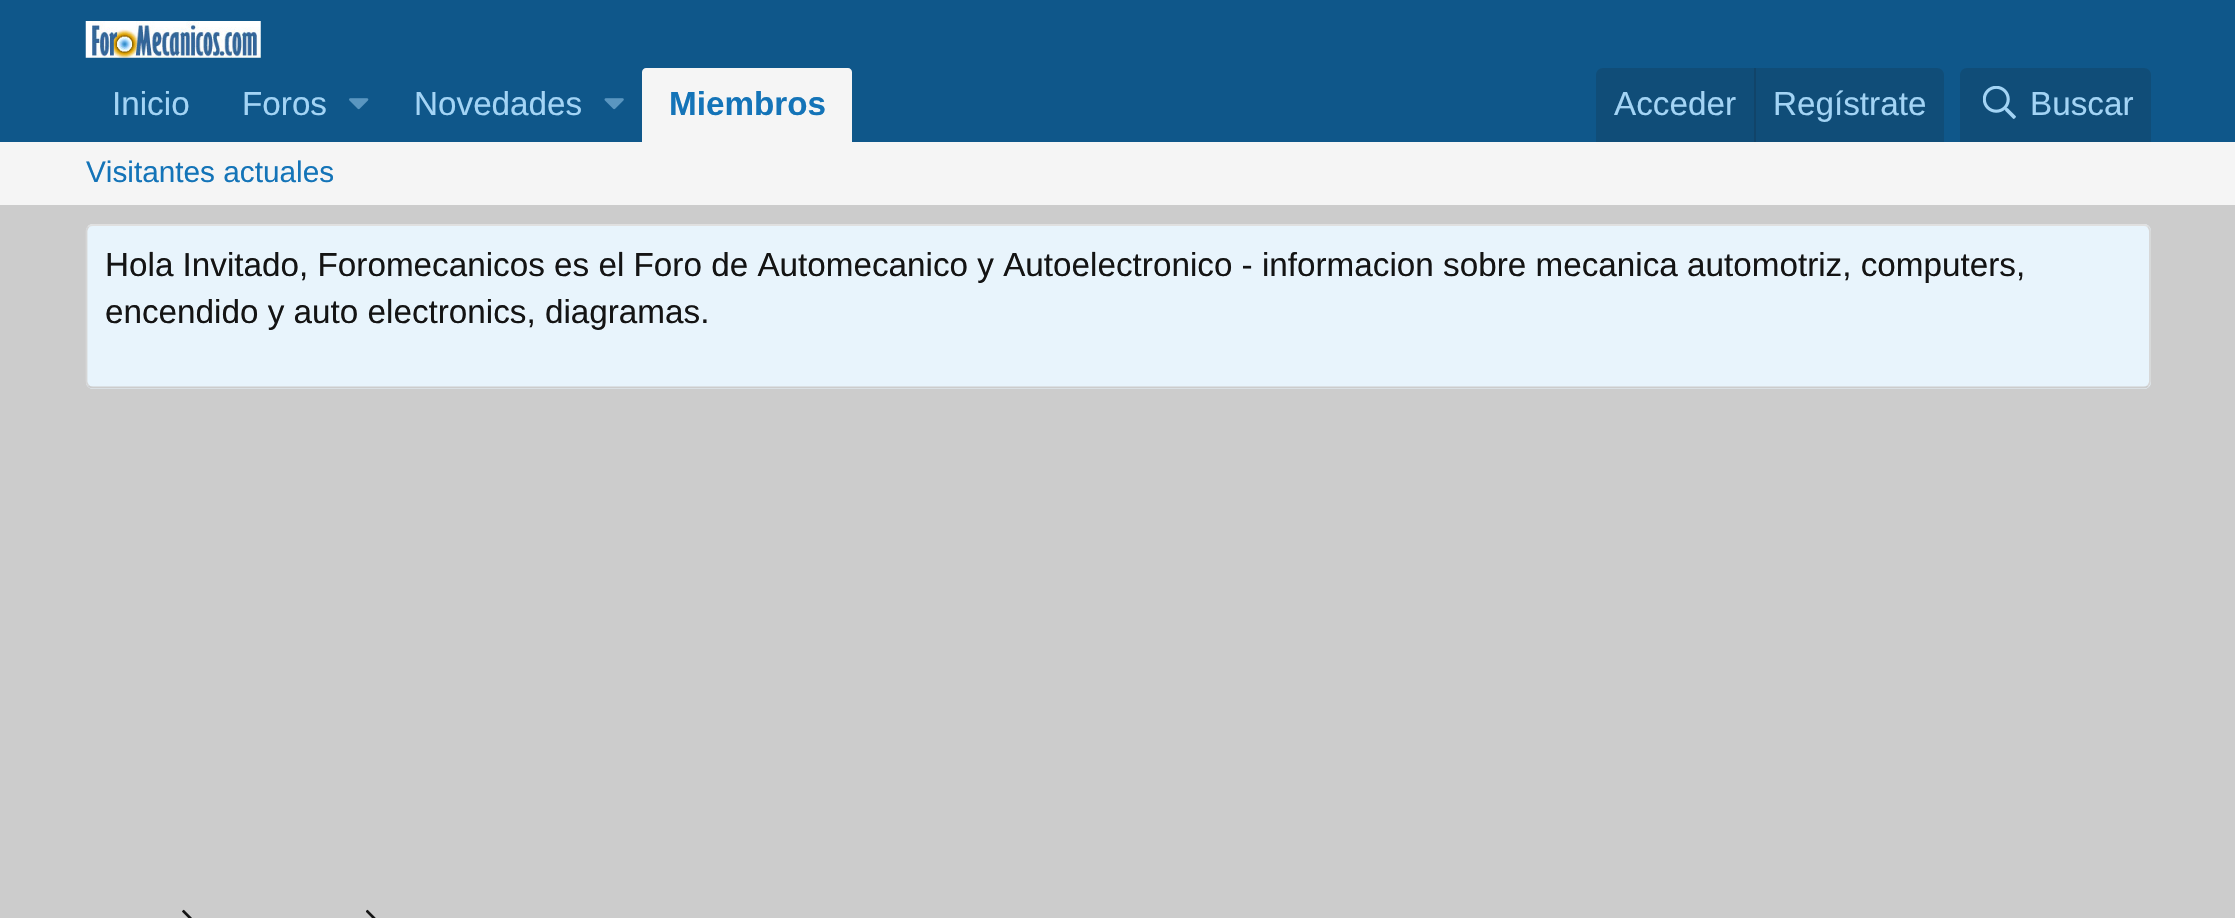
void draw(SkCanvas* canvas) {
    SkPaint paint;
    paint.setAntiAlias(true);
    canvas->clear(0xFFCCCCCC);
    paint.setColor(0xFF0F578A);
    canvas->drawRect(SkRect::MakeXYWH(0, 0, 2235, 142), paint);
    canvas->drawImageRect(SkImages::DeferredFromEncodedData(SkData::MakeFromFileName("img1.png")), SkRect::MakeXYWH(85, 21, 176, 37), SkSamplingOptions());
    SkFont font1(fontMgr->matchFamilyStyle("Liberation Sans", SkFontStyle::Normal()), 33.25f);
    font1.setSubpixel(true);
    paint.setColor(0xFFA3D4F5);
    canvas->drawString("Inicio", 112, 115, font1, paint);
    canvas->drawString("Foros", 242, 115, font1, paint);
    canvas->drawImageRect(SkImages::DeferredFromEncodedData(SkData::MakeFromFileName("img2.png")), SkRect::MakeXYWH(349, 98, 20, 12), SkSamplingOptions());
    canvas->drawString("Novedades", 414, 115, font1, paint);
    canvas->drawImageRect(SkImages::DeferredFromEncodedData(SkData::MakeFromFileName("img3.png")), SkRect::MakeXYWH(604, 98, 20, 12), SkSamplingOptions());
    paint.setColor(0xFFF5F5F5);
    canvas->drawPath(SkPathBuilder().moveTo(646, 68).lineTo(848, 68).cubicTo(850, 68, 852, 70, 852, 72).lineTo(852, 142).lineTo(642, 142).lineTo(642, 72).cubicTo(642, 70, 644, 68, 646, 68).close().detach(), paint);
    SkFont font2(fontMgr->matchFamilyStyle("Liberation Sans", SkFontStyle::Bold()), 33.25f);
    font2.setSubpixel(true);
    paint.setColor(0xFF1474B8);
    canvas->drawString("Miembros", 669, 115, font2, paint);
    paint.setColor(0xFF104D78);
    canvas->drawPath(SkPathBuilder().moveTo(1603, 68).lineTo(1937, 68).cubicTo(1941, 68, 1944, 71, 1944, 75).lineTo(1944, 142).lineTo(1596, 142).lineTo(1596, 75).cubicTo(1596, 71, 1599, 68, 1603, 68).close().detach(), paint);
    paint.setColor(0xFFA3D4F5);
    canvas->drawString("Acceder", 1614, 115, font1, paint);
    paint.setColor(0xFF114469);
    canvas->drawRect(SkRect::MakeXYWH(1754, 68, 2, 74), paint);
    paint.setColor(0xFFA3D4F5);
    canvas->drawString("Regístrate", 1773, 115, font1, paint);
    paint.setColor(0xFF104D78);
    canvas->drawPath(SkPathBuilder().moveTo(1967, 68).lineTo(2144, 68).cubicTo(2148, 68, 2151, 71, 2151, 75).lineTo(2151, 142).lineTo(1960, 142).lineTo(1960, 75).cubicTo(1960, 71, 1963, 68, 1967, 68).close().detach(), paint);
    canvas->drawImageRect(SkImages::DeferredFromEncodedData(SkData::MakeFromFileName("img4.png")), SkRect::MakeXYWH(1983, 86, 33, 33), SkSamplingOptions());
    paint.setColor(0xFFA3D4F5);
    canvas->drawString("Buscar", 2030, 115, font1, paint);
    paint.setColor(0xFFF5F5F5);
    canvas->drawRect(SkRect::MakeXYWH(0, 142, 2235, 63), paint);
    SkFont font3(fontMgr->matchFamilyStyle("Liberation Sans", SkFontStyle::Normal()), 29.75f);
    font3.setSubpixel(true);
    paint.setColor(0xFF1474B8);
    canvas->drawString("Visitantes actuales", 86, 182, font3, paint);
    paint.setColor(0xFFE8F4FC);
    canvas->drawRoundRect(SkRect::MakeXYWH(86, 224, 2065, 165), 7, 7, paint);
    paint.setStyle(SkPaint::kStroke_Style);
    paint.setStrokeWidth(1.8f);
    paint.setColor(0xFFE0E0E0);
    canvas->drawPath(SkPathBuilder().moveTo(88.5f, 226.5f).cubicTo(89.5f, 225.5f, 91, 225, 93, 225).lineTo(2144, 225).cubicTo(2145.5f, 225, 2147, 225.5f, 2148, 226.5f).detach(), paint);
    paint.setColor(0xFFD6D6D6);
    canvas->drawPath(SkPathBuilder().moveTo(2148, 226.5f).cubicTo(2149, 228, 2150, 229.5f, 2150, 231).lineTo(2150, 381.5f).cubicTo(2150, 383, 2149, 384.5f, 2148, 386).detach(), paint);
    paint.setColor(0xFFCCCCCC);
    canvas->drawPath(SkPathBuilder().moveTo(2148, 386).cubicTo(2147, 387, 2145.5f, 387.5f, 2144, 387.5f).lineTo(93, 387.5f).cubicTo(91, 387.5f, 89.5f, 387, 88.5f, 386).detach(), paint);
    paint.setColor(0xFFD6D6D6);
    canvas->drawPath(SkPathBuilder().moveTo(88.5f, 386).cubicTo(87.5f, 384.5f, 86.5f, 383, 86.5f, 381.5f).lineTo(86.5f, 231).cubicTo(86.5f, 229.5f, 87.5f, 228, 88.5f, 226.5f).detach(), paint);
    paint.setStyle(SkPaint::kFill_Style);
    paint.setColor(0xFF141414);
    canvas->drawString("Hola Invitado, Foromecanicos es el Foro de Automecanico y Autoelectronico - informacion sobre mecanica automotriz, computers,", 105, 276, font1, paint);
    canvas->drawString("encendido y auto electronics, diagramas.", 105, 323, font1, paint);
    canvas->drawImageRect(SkImages::DeferredFromEncodedData(SkData::MakeFromFileName("img5.png")), SkRect::MakeXYWH(182, 909, 10, 9), SkSamplingOptions());
    canvas->drawImageRect(SkImages::DeferredFromEncodedData(SkData::MakeFromFileName("img6.png")), SkRect::MakeXYWH(366, 909, 10, 9), SkSamplingOptions());
}
